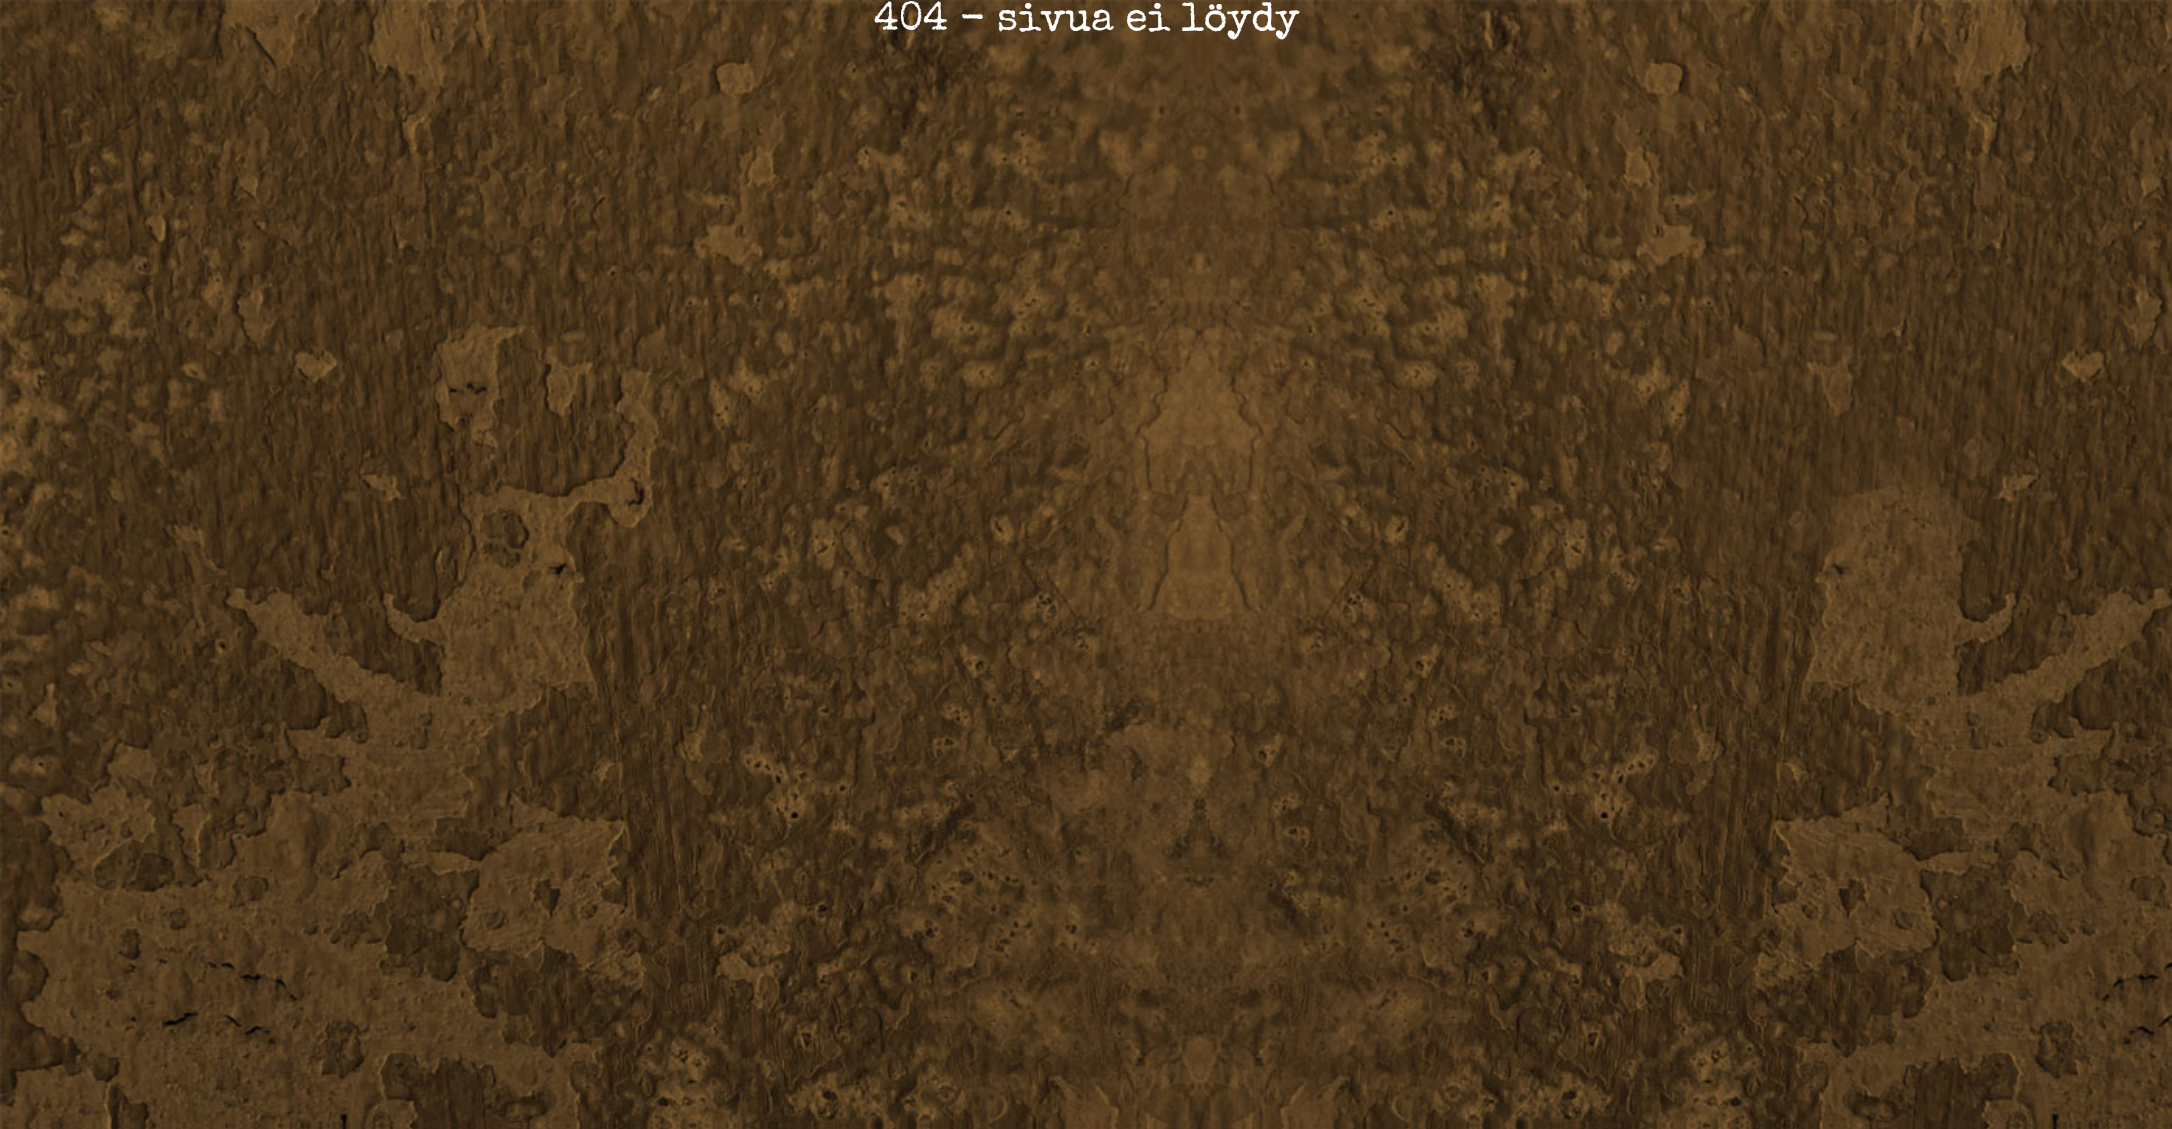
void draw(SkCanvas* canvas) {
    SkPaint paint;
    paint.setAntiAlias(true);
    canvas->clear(0xFFFFFFFF);
    canvas->drawImageRect(SkImages::DeferredFromEncodedData(SkData::MakeFromFileName("img1.png")), SkRect::MakeXYWH(0, 0, 2172, 1129), SkSamplingOptions());
    SkFont font1(fontMgr->matchFamilyStyle("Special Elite", SkFontStyle::Normal()), 40.25f);
    font1.setSubpixel(true);
    paint.setColor(0xFFFFFFFF);
    canvas->drawString("404 - sivua ei löydy", 874, 30, font1, paint);
}
